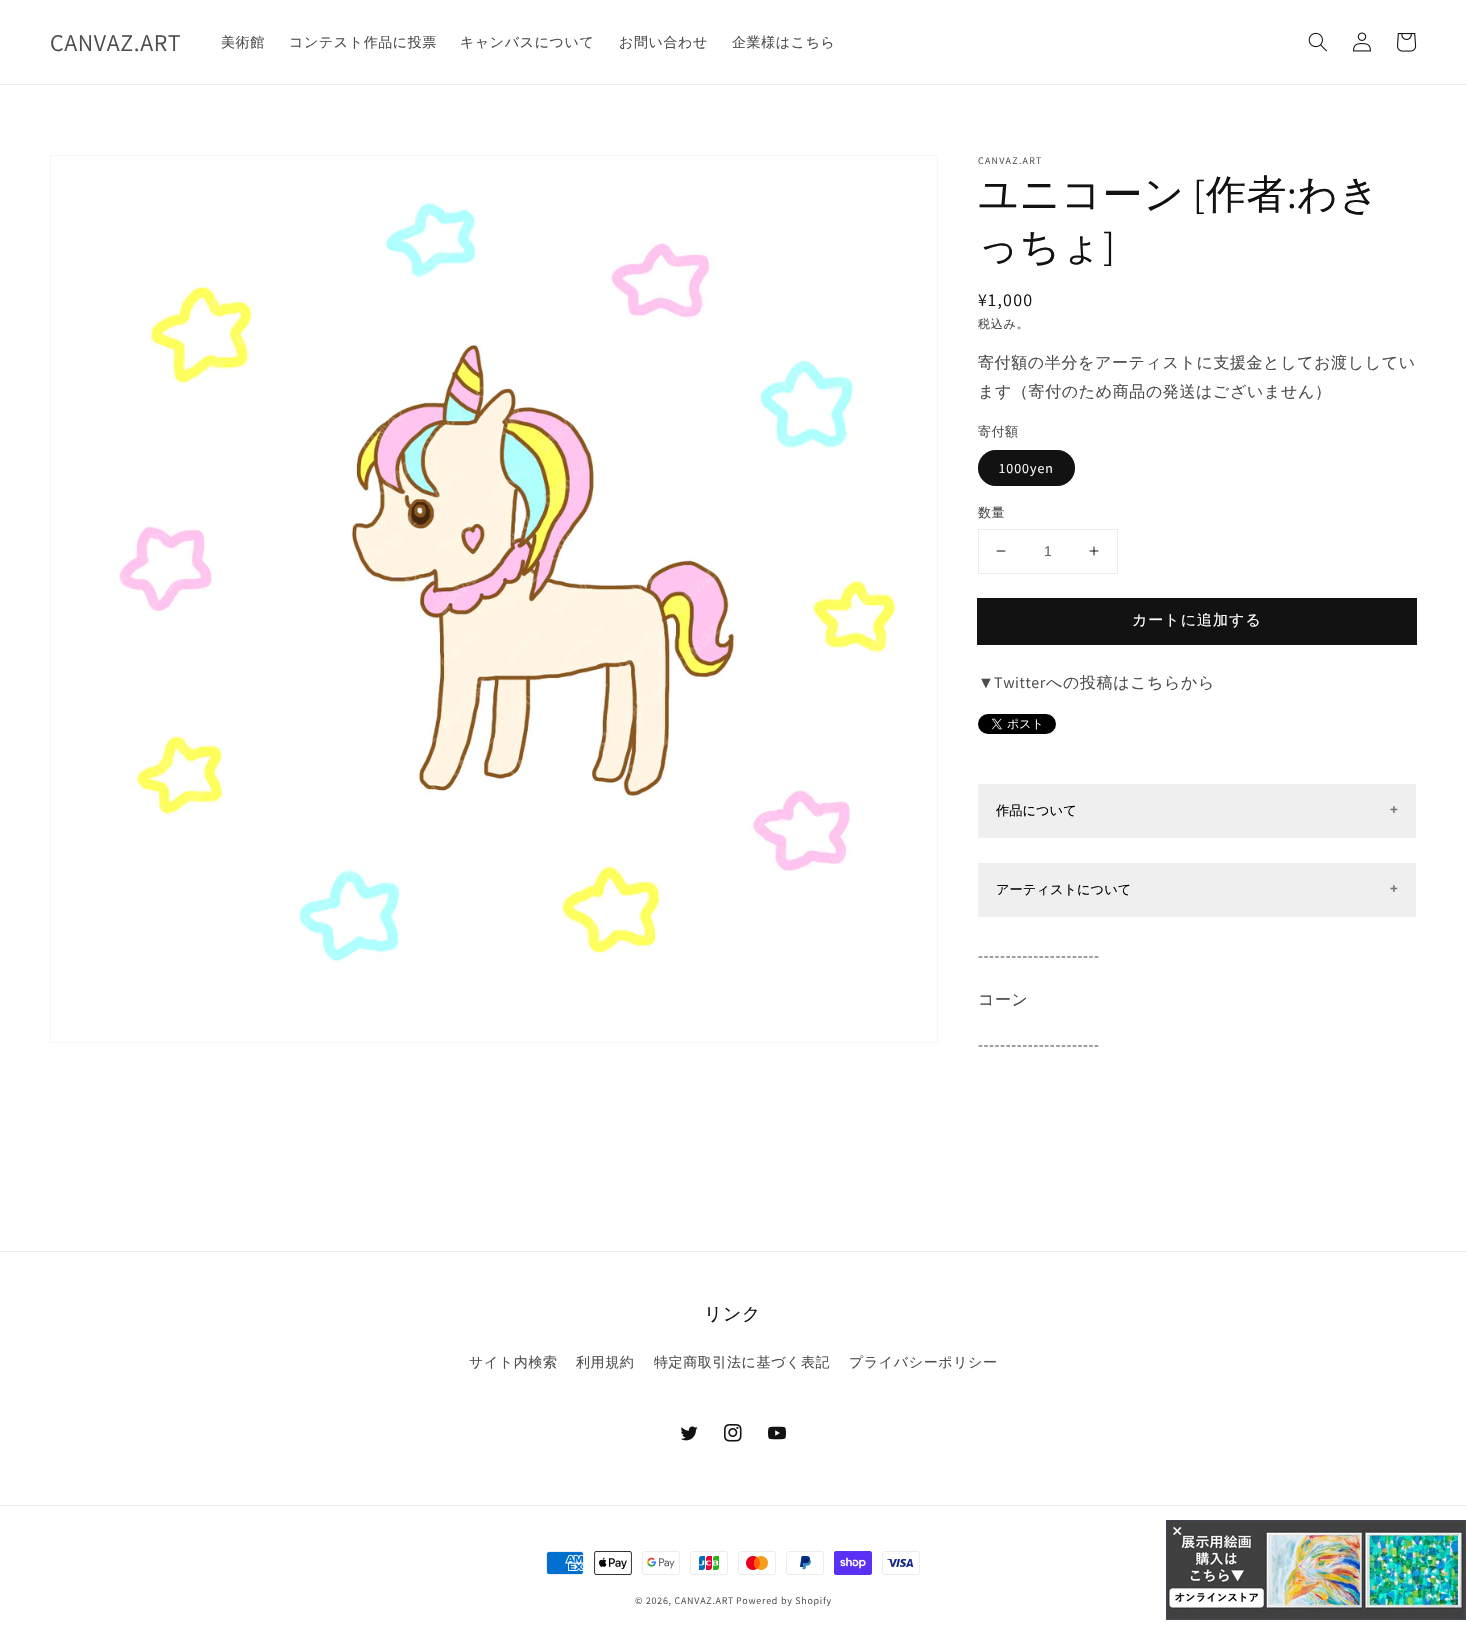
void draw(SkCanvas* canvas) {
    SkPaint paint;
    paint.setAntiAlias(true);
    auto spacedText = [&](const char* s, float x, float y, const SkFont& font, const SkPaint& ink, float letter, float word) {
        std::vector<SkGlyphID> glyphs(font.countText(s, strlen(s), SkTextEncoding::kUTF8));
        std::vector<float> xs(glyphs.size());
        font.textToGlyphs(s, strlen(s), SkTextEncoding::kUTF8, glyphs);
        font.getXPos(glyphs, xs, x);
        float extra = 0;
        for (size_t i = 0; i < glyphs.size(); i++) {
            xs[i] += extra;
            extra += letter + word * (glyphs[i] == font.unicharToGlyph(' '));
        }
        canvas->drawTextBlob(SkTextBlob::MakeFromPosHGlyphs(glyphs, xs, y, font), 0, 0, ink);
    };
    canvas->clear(0xFFFFFFFF);
    paint.setColor(0xFFECECEC);
    canvas->drawRect(SkRect::MakeXYWH(0, 84, 1466, 1), paint);
    SkFont font1(fontMgr->matchFamilyStyle("Assistant", SkFontStyle::Normal()), 24);
    font1.setSubpixel(true);
    paint.setColor(0xFF4D4D4D);
    spacedText("CANVAZ.ART", 50, 51, font1, paint, 0.6f, 0);
    SkFont font2(fontMgr->matchFamilyStyle("WenQuanYi Zen Hei", SkFontStyle(500, SkFontStyle::kNormal_Width, SkFontStyle::kUpright_Slant)), 14);
    font2.setSubpixel(true);
    spacedText("美術館", 221, 47, font2, paint, 0.6f, 0);
    spacedText("コンテスト作品に投票", 289, 47, font2, paint, 0.6f, 0);
    spacedText("キャンバスについて", 460, 47, font2, paint, 0.6f, 0);
    spacedText("お問い合わせ", 619, 47, font2, paint, 0.6f, 0);
    spacedText("企業様はこちら", 732, 47, font2, paint, 0.6f, 0);
    canvas->drawImageRect(SkImages::DeferredFromEncodedData(SkData::MakeFromFileName("img1.png")), SkRect::MakeXYWH(1308, 32, 19, 20), SkSamplingOptions());
    canvas->drawImageRect(SkImages::DeferredFromEncodedData(SkData::MakeFromFileName("img2.png")), SkRect::MakeXYWH(1353, 32, 18, 20), SkSamplingOptions());
    canvas->drawImageRect(SkImages::DeferredFromEncodedData(SkData::MakeFromFileName("img3.png")), SkRect::MakeXYWH(1397, 33, 20, 19), SkSamplingOptions());
    paint.setStyle(SkPaint::kStroke_Style);
    paint.setStrokeWidth(1);
    paint.setColor(0xFFF6F6F6);
    canvas->drawRect(SkRect::MakeXYWH(50.5f, 155.5f, 887, 887), paint);
    canvas->drawImageRect(SkImages::DeferredFromEncodedData(SkData::MakeFromFileName("img4.png")), SkRect::MakeXYWH(115, 202, 782, 760), SkSamplingOptions());
    SkFont font3(fontMgr->matchFamilyStyle("Assistant", SkFontStyle::Normal()), 10);
    font3.setSubpixel(true);
    paint.setStyle(SkPaint::kFill_Style);
    paint.setColor(0xFF4D4D4D);
    spacedText("CANVAZ.ART", 978, 164, font3, paint, 1.25f, 0);
    SkFont font4(fontMgr->matchFamilyStyle("WenQuanYi Zen Hei", SkFontStyle(500, SkFontStyle::kNormal_Width, SkFontStyle::kUpright_Slant)), 40);
    font4.setSubpixel(true);
    paint.setColor(0xFF121212);
    spacedText("ユニコーン", 978, 208, font4, paint, 0.6f, 0);
    SkFont font5(fontMgr->matchFamilyStyle("Assistant", SkFontStyle::Normal()), 40);
    font5.setSubpixel(true);
    spacedText("[", 1193, 208, font5, paint, 0.6f, 0);
    spacedText("作者", 1206, 208, font4, paint, 0.6f, 0);
    spacedText(":", 1287, 208, font5, paint, 0.6f, 0);
    spacedText("わき", 1297, 208, font4, paint, 0.6f, 0);
    spacedText("っちょ", 978, 260, font4, paint, 0.6f, 0);
    spacedText("]", 1103, 260, font5, paint, 0.6f, 0);
    SkFont font6(fontMgr->matchFamilyStyle("Assistant", SkFontStyle::Normal()), 18);
    font6.setSubpixel(true);
    spacedText("¥1,000", 978, 306, font6, paint, 1.25f, 0);
    SkFont font7(fontMgr->matchFamilyStyle("WenQuanYi Zen Hei", SkFontStyle(500, SkFontStyle::kNormal_Width, SkFontStyle::kUpright_Slant)), 12);
    font7.setSubpixel(true);
    paint.setColor(0xFF4D4D4D);
    spacedText("税込み。", 978, 328, font7, paint, 0.75f, 0);
    SkFont font8(fontMgr->matchFamilyStyle("WenQuanYi Zen Hei", SkFontStyle(500, SkFontStyle::kNormal_Width, SkFontStyle::kUpright_Slant)), 16);
    font8.setSubpixel(true);
    spacedText("寄付額の半分をアーティストに支援金としてお渡ししてい", 978, 368, font8, paint, 0.6f, 0);
    spacedText("ます（寄付のため商品の発送はございません）", 978, 397, font8, paint, 0.6f, 0);
    SkFont font9(fontMgr->matchFamilyStyle("WenQuanYi Zen Hei", SkFontStyle(500, SkFontStyle::kNormal_Width, SkFontStyle::kUpright_Slant)), 13);
    font9.setSubpixel(true);
    spacedText("寄付額", 978, 436, font9, paint, 0.5f, 0);
    paint.setColor(0xFF121212);
    canvas->drawRoundRect(SkRect::MakeXYWH(978, 450, 97, 36), 18, 18, paint);
    paint.setStyle(SkPaint::kStroke_Style);
    paint.setColor(0x8C121212);
    canvas->drawRoundRect(SkRect::MakeXYWH(978.5f, 450.5f, 96, 35), 17.5f, 17.5f, paint);
    SkFont font10(fontMgr->matchFamilyStyle("Assistant", SkFontStyle::Normal()), 14);
    font10.setSubpixel(true);
    paint.setStyle(SkPaint::kFill_Style);
    paint.setColor(0xFFFFFFFF);
    spacedText("1000yen", 999, 473, font10, paint, 1, 0);
    paint.setColor(0xFF4D4D4D);
    spacedText("数量", 978, 517, font9, paint, 0.5f, 0);
    paint.setStyle(SkPaint::kStroke_Style);
    paint.setColor(0xFFECECEC);
    canvas->drawRect(SkRect::MakeXYWH(978.5f, 529.5f, 139, 44), paint);
    canvas->drawImageRect(SkImages::DeferredFromEncodedData(SkData::MakeFromFileName("img5.png")), SkRect::MakeXYWH(996, 550, 10, 2), SkSamplingOptions());
    SkFont font11(fontMgr->matchFamilyStyle("Liberation Sans", SkFontStyle::Normal()), 14);
    font11.setSubpixel(true);
    paint.setStyle(SkPaint::kFill_Style);
    paint.setColor(0xFF686868);
    canvas->drawString("1", 1044, 556, font11, paint);
    canvas->drawImageRect(SkImages::DeferredFromEncodedData(SkData::MakeFromFileName("img6.png")), SkRect::MakeXYWH(1089, 546, 10, 10), SkSamplingOptions());
    paint.setStyle(SkPaint::kStroke_Style);
    paint.setColor(0xFF121212);
    canvas->drawRect(SkRect::MakeXYWH(977.5f, 598.5f, 439, 46), paint);
    paint.setStyle(SkPaint::kFill_Style);
    canvas->drawRect(SkRect::MakeXYWH(978, 599, 438, 45), paint);
    SkFont font12(fontMgr->matchFamilyStyle("WenQuanYi Zen Hei", SkFontStyle(500, SkFontStyle::kNormal_Width, SkFontStyle::kUpright_Slant)), 15);
    font12.setSubpixel(true);
    paint.setColor(0xFFFFFFFF);
    spacedText("カートに追加する", 1132, 625, font12, paint, 1, 0);
    SkFont font13(fontMgr->matchFamilyStyle("Liberation Sans", SkFontStyle::Normal()), 16);
    font13.setSubpixel(true);
    paint.setColor(0xFF4D4D4D);
    spacedText("▼", 978, 688, font13, paint, 0.6f, 0);
    SkFont font14(fontMgr->matchFamilyStyle("Assistant", SkFontStyle::Normal()), 16);
    font14.setSubpixel(true);
    spacedText("Twitter", 994, 688, font14, paint, 0.6f, 0);
    spacedText("への投稿はこちらから", 1046, 688, font8, paint, 0.6f, 0);
    canvas->drawImageRect(SkImages::DeferredFromEncodedData(SkData::MakeFromFileName("img7.png")), SkRect::MakeXYWH(978, 714, 78, 20), SkSamplingOptions());
    paint.setColor(0xFFEFEFEF);
    canvas->drawRect(SkRect::MakeXYWH(978, 784, 438, 54), paint);
    SkFont font15(fontMgr->matchFamilyStyle("WenQuanYi Zen Hei", SkFontStyle(500, SkFontStyle::kNormal_Width, SkFontStyle::kUpright_Slant)), 13.25f);
    font15.setSubpixel(true);
    paint.setColor(0xFF000000);
    canvas->drawString("作品について", 996, 815, font15, paint);
    SkFont font16(fontMgr->matchFamilyStyle("Liberation Sans", SkFontStyle::Bold()), 13.25f);
    font16.setSubpixel(true);
    paint.setColor(0xFF777777);
    canvas->drawString("+", 1390, 814, font16, paint);
    paint.setColor(0xFFEFEFEF);
    canvas->drawRect(SkRect::MakeXYWH(978, 863, 438, 54), paint);
    paint.setColor(0xFF000000);
    canvas->drawString("アーティストについて", 996, 894, font15, paint);
    paint.setColor(0xFF777777);
    canvas->drawString("+", 1390, 893, font16, paint);
    paint.setColor(0xFF4D4D4D);
    spacedText("----------------------", 978, 961, font14, paint, 0.6f, 0);
    spacedText("コーン", 978, 1005, font8, paint, 0.6f, 0);
    spacedText("----------------------", 978, 1050, font14, paint, 0.6f, 0);
    paint.setColor(0xFFECECEC);
    canvas->drawRect(SkRect::MakeXYWH(0, 1251, 1466, 1), paint);
    SkFont font17(fontMgr->matchFamilyStyle("WenQuanYi Zen Hei", SkFontStyle(500, SkFontStyle::kNormal_Width, SkFontStyle::kUpright_Slant)), 18);
    font17.setSubpixel(true);
    paint.setColor(0xFF121212);
    spacedText("リンク", 704, 1320, font17, paint, 0.6f, 0);
    paint.setColor(0xFF4D4D4D);
    spacedText("サイト内検索", 469, 1367, font2, paint, 0.6f, 0);
    spacedText("利用規約", 576, 1367, font2, paint, 0.6f, 0);
    spacedText("特定商取引法に基づく表記", 654, 1367, font2, paint, 0.6f, 0);
    spacedText("プライバシーポリシー", 849, 1367, font2, paint, 0.6f, 0);
    canvas->drawImageRect(SkImages::DeferredFromEncodedData(SkData::MakeFromFileName("img8.png")), SkRect::MakeXYWH(680, 1426, 18, 15), SkSamplingOptions());
    canvas->drawImageRect(SkImages::DeferredFromEncodedData(SkData::MakeFromFileName("img9.png")), SkRect::MakeXYWH(724, 1424, 18, 18), SkSamplingOptions());
    canvas->drawImageRect(SkImages::DeferredFromEncodedData(SkData::MakeFromFileName("img10.png")), SkRect::MakeXYWH(768, 1426, 18, 14), SkSamplingOptions());
    paint.setColor(0xFFECECEC);
    canvas->drawRect(SkRect::MakeXYWH(0, 1505, 1466, 1), paint);
    canvas->drawImageRect(SkImages::DeferredFromEncodedData(SkData::MakeFromFileName("img11.png")), SkRect::MakeXYWH(546, 1551, 38, 24), SkSamplingOptions());
    canvas->drawImageRect(SkImages::DeferredFromEncodedData(SkData::MakeFromFileName("img12.png")), SkRect::MakeXYWH(594, 1551, 38, 24), SkSamplingOptions());
    canvas->drawImageRect(SkImages::DeferredFromEncodedData(SkData::MakeFromFileName("img13.png")), SkRect::MakeXYWH(642, 1551, 38, 24), SkSamplingOptions());
    canvas->drawImageRect(SkImages::DeferredFromEncodedData(SkData::MakeFromFileName("img14.png")), SkRect::MakeXYWH(690, 1551, 38, 24), SkSamplingOptions());
    canvas->drawImageRect(SkImages::DeferredFromEncodedData(SkData::MakeFromFileName("img15.png")), SkRect::MakeXYWH(738, 1551, 38, 24), SkSamplingOptions());
    canvas->drawImageRect(SkImages::DeferredFromEncodedData(SkData::MakeFromFileName("img16.png")), SkRect::MakeXYWH(786, 1551, 38, 24), SkSamplingOptions());
    canvas->drawImageRect(SkImages::DeferredFromEncodedData(SkData::MakeFromFileName("img17.png")), SkRect::MakeXYWH(834, 1551, 38, 24), SkSamplingOptions());
    canvas->drawImageRect(SkImages::DeferredFromEncodedData(SkData::MakeFromFileName("img18.png")), SkRect::MakeXYWH(882, 1551, 38, 24), SkSamplingOptions());
    paint.setColor(0xFF4D4D4D);
    spacedText("© 2026, CANVAZ.ART", 635, 1604, font3, paint, 0.75f, 0);
    spacedText("Powered by Shopify", 736, 1604, font3, paint, 0.75f, 0);
    canvas->drawImageRect(SkImages::DeferredFromEncodedData(SkData::MakeFromFileName("img19.png")), SkRect::MakeXYWH(1166, 1520, 300, 100), SkSamplingOptions());
    SkFont font18(fontMgr->matchFamilyStyle("Liberation Sans", SkFontStyle::Normal()), 18);
    font18.setSubpixel(true);
    paint.setColor(0xFFFFFFFF);
    canvas->drawString("×", 1172, 1537, font18, paint);
}
